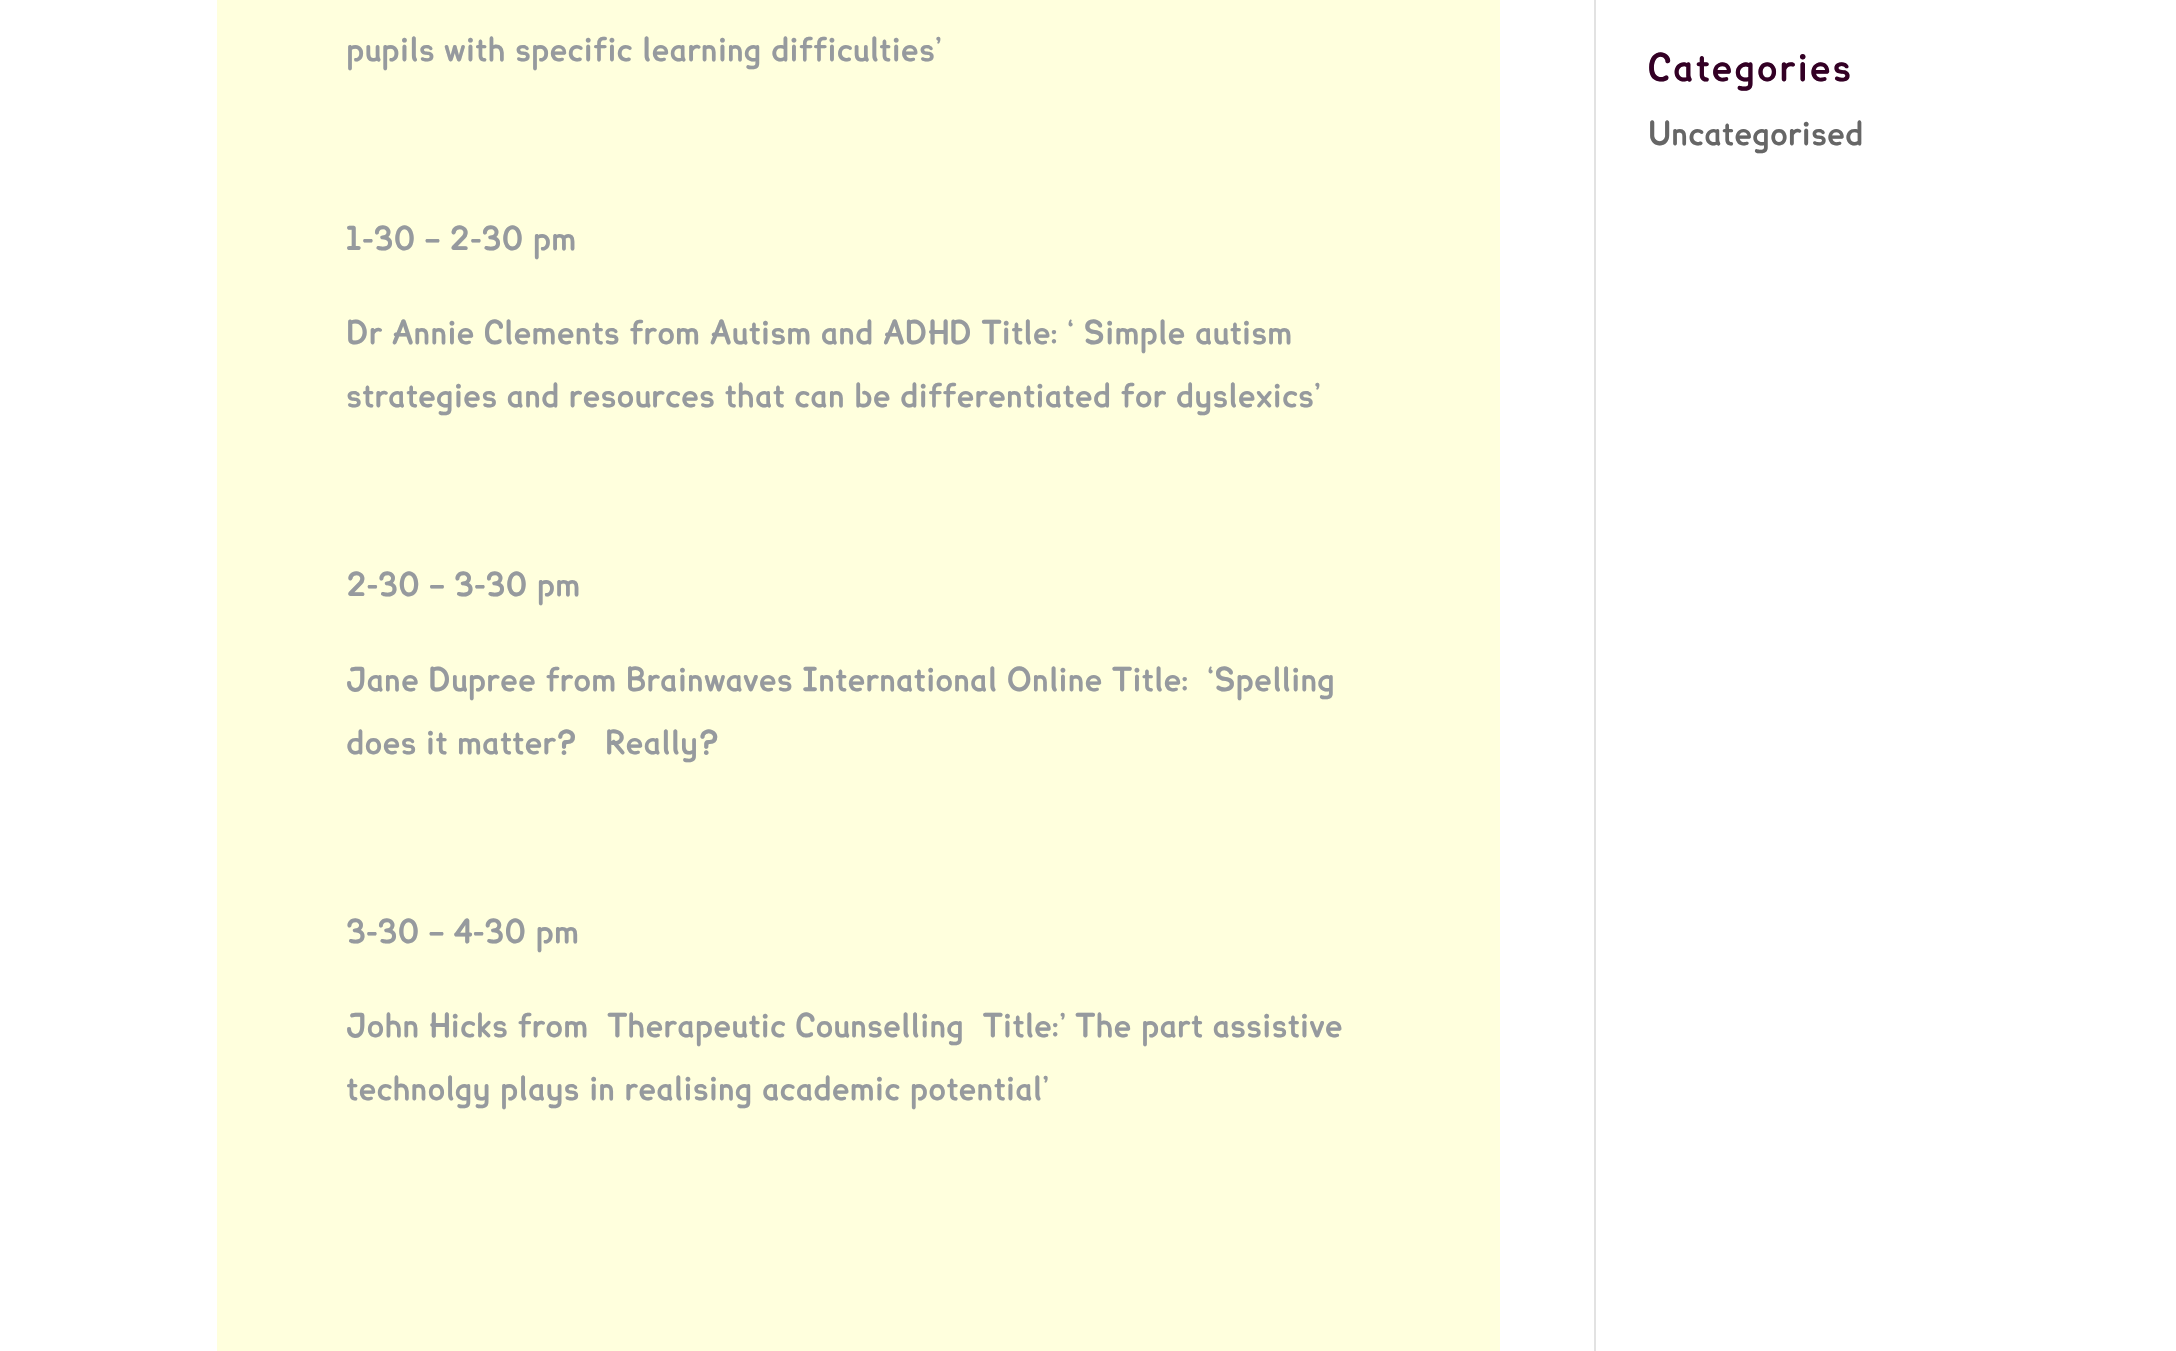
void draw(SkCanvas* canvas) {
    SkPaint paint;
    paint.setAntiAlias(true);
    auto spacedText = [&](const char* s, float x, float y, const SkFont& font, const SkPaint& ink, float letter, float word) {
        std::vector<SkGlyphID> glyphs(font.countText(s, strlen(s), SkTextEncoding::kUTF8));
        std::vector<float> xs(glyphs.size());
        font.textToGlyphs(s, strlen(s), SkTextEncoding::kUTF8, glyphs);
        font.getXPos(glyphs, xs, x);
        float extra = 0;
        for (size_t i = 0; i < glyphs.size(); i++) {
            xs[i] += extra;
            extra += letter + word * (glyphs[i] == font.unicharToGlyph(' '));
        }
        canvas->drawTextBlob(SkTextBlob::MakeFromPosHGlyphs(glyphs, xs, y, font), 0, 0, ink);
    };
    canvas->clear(0xFFFFFFFF);
    paint.setColor(0xFFE2E2E2);
    canvas->drawRect(SkRect::MakeXYWH(1594, 0, 2, 1351), paint);
    paint.setColor(0xFFFFFFDD);
    canvas->drawRect(SkRect::MakeXYWH(217, 0, 1283, 1351), paint);
    SkFont font1(fontMgr->matchFamilyStyle("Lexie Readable", SkFontStyle::Bold()), 31.5f);
    font1.setSubpixel(true);
    paint.setColor(0xFF969A9E);
    canvas->drawString("pupils with specific learning difficulties’", 346, 61, font1, paint);
    canvas->drawString("1-30 – 2-30 pm", 346, 250, font1, paint);
    canvas->drawString("Dr Annie Clements from Autism and ADHD Title: ‘ Simple autism", 346, 344, font1, paint);
    canvas->drawString("strategies and resources that can be differentiated for dyslexics’", 346, 407, font1, paint);
    canvas->drawString("2-30 – 3-30 pm", 346, 596, font1, paint);
    canvas->drawString("Jane Dupree from Brainwaves International Online Title:  ‘Spelling", 346, 691, font1, paint);
    canvas->drawString("does it matter?   Really?", 346, 754, font1, paint);
    canvas->drawString("3-30 – 4-30 pm", 346, 943, font1, paint);
    canvas->drawString("John Hicks from  Therapeutic Counselling  Title:’ The part assistive", 346, 1037, font1, paint);
    canvas->drawString("technolgy plays in realising academic potential’", 346, 1100, font1, paint);
    SkFont font2(fontMgr->matchFamilyStyle("Lexie Readable", SkFontStyle::Bold()), 36.75f);
    font2.setSubpixel(true);
    paint.setColor(0xFF330025);
    spacedText("Categories", 1648, 81, font2, paint, 1.75f, 0);
    paint.setColor(0xFF666666);
    canvas->drawString("Uncategorised", 1648, 145, font1, paint);
}
